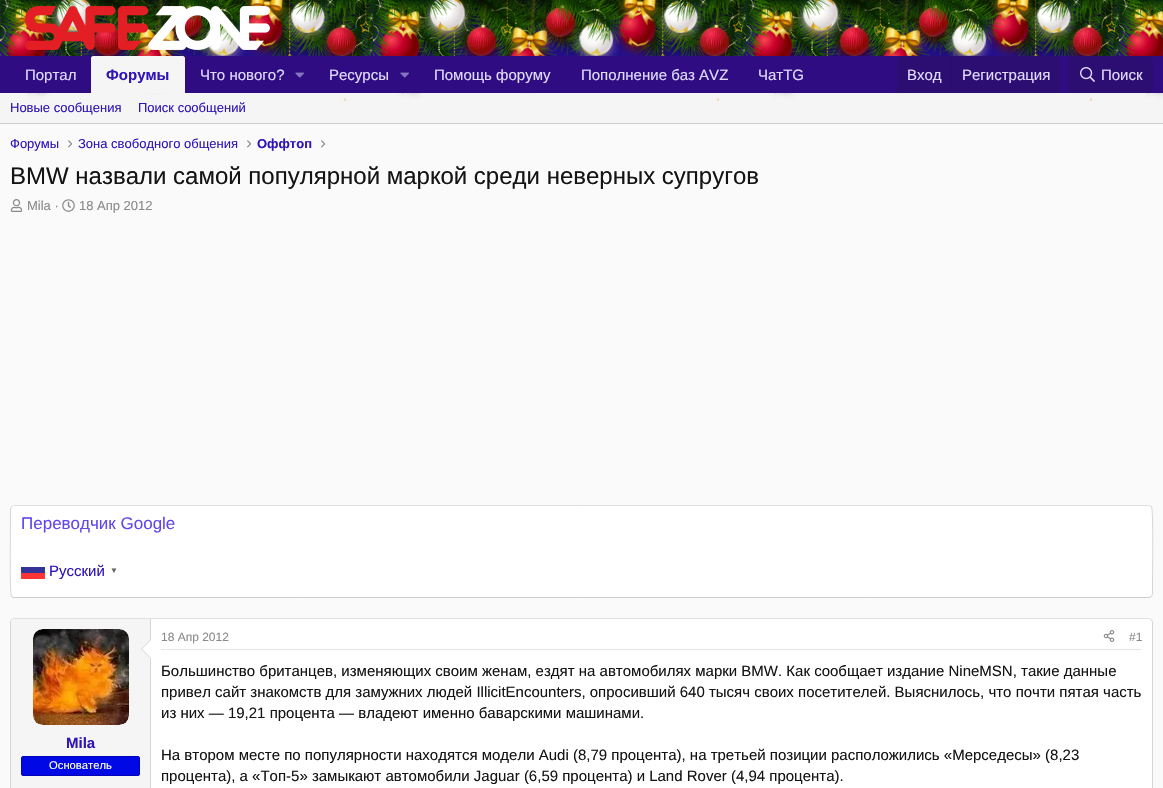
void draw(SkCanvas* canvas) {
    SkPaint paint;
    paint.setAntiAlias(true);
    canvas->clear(0xFFFAFAFA);
    paint.setColor(0xFF240F8A);
    canvas->drawRect(SkRect::MakeXYWH(0, 0, 1163, 56), paint);
    paint.setColor(0xFFF5F5F5);
    canvas->drawRect(SkRect::MakeXYWH(0, 93, 1163, 30), paint);
    canvas->drawImageRect(SkImages::DeferredFromEncodedData(SkData::MakeFromFileName("img1.png")), SkRect::MakeXYWH(0, 0, 1163, 101), SkSamplingOptions());
    paint.setColor(0xBF000000);
    paint.setMaskFilter(SkMaskFilter::MakeBlur(kNormal_SkBlurStyle, 15));
    canvas->drawRect(SkRect::MakeXYWH(0, -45, 1163, 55), paint);
    paint.setMaskFilter(nullptr);
    canvas->drawImageRect(SkImages::DeferredFromEncodedData(SkData::MakeFromFileName("img2.png")), SkRect::MakeXYWH(0, 0, 53, 56), SkSamplingOptions());
    canvas->drawImageRect(SkImages::DeferredFromEncodedData(SkData::MakeFromFileName("img3.png")), SkRect::MakeXYWH(0, 0, 25, 56), SkSamplingOptions());
    canvas->drawImageRect(SkImages::DeferredFromEncodedData(SkData::MakeFromFileName("img5.png")), SkRect::MakeXYWH(49, 0, 49, 43), SkSamplingOptions());
    canvas->drawImageRect(SkImages::DeferredFromEncodedData(SkData::MakeFromFileName("img4.png")), SkRect::MakeXYWH(25, 0, 60, 22), SkSamplingOptions());
    canvas->drawImageRect(SkImages::DeferredFromEncodedData(SkData::MakeFromFileName("img6.png")), SkRect::MakeXYWH(131, 0, 49, 94), SkSamplingOptions());
    canvas->drawImageRect(SkImages::DeferredFromEncodedData(SkData::MakeFromFileName("img7.png")), SkRect::MakeXYWH(166, 0, 41, 48), SkSamplingOptions());
    canvas->drawImageRect(SkImages::DeferredFromEncodedData(SkData::MakeFromFileName("img13.png")), SkRect::MakeXYWH(200, 1, 45, 55), SkSamplingOptions());
    canvas->drawImageRect(SkImages::DeferredFromEncodedData(SkData::MakeFromFileName("img8.png")), SkRect::MakeXYWH(178, 0, 27, 26), SkSamplingOptions());
    canvas->drawImageRect(SkImages::DeferredFromEncodedData(SkData::MakeFromFileName("img10.png")), SkRect::MakeXYWH(239, 0, 50, 56), SkSamplingOptions());
    canvas->drawImageRect(SkImages::DeferredFromEncodedData(SkData::MakeFromFileName("img9.png")), SkRect::MakeXYWH(205, 0, 50, 45), SkSamplingOptions());
    canvas->drawImageRect(SkImages::DeferredFromEncodedData(SkData::MakeFromFileName("img11.png")), SkRect::MakeXYWH(284, 0, 46, 44), SkSamplingOptions());
    canvas->drawImageRect(SkImages::DeferredFromEncodedData(SkData::MakeFromFileName("img12.png")), SkRect::MakeXYWH(88, 4, 40, 52), SkSamplingOptions());
    canvas->drawImageRect(SkImages::DeferredFromEncodedData(SkData::MakeFromFileName("img16.png")), SkRect::MakeXYWH(321, 5, 41, 51), SkSamplingOptions());
    canvas->drawImageRect(SkImages::DeferredFromEncodedData(SkData::MakeFromFileName("img14.png")), SkRect::MakeXYWH(289, 0, 78, 23), SkSamplingOptions());
    canvas->drawImageRect(SkImages::DeferredFromEncodedData(SkData::MakeFromFileName("img15.png")), SkRect::MakeXYWH(367, 0, 6, 56), SkSamplingOptions());
    canvas->drawImageRect(SkImages::DeferredFromEncodedData(SkData::MakeFromFileName("img17.png")), SkRect::MakeXYWH(373, 0, 53, 56), SkSamplingOptions());
    canvas->drawImageRect(SkImages::DeferredFromEncodedData(SkData::MakeFromFileName("img18.png")), SkRect::MakeXYWH(373, 0, 25, 56), SkSamplingOptions());
    canvas->drawImageRect(SkImages::DeferredFromEncodedData(SkData::MakeFromFileName("img20.png")), SkRect::MakeXYWH(422, 0, 49, 43), SkSamplingOptions());
    canvas->drawImageRect(SkImages::DeferredFromEncodedData(SkData::MakeFromFileName("img19.png")), SkRect::MakeXYWH(398, 0, 60, 22), SkSamplingOptions());
    canvas->drawImageRect(SkImages::DeferredFromEncodedData(SkData::MakeFromFileName("img21.png")), SkRect::MakeXYWH(504, 0, 50, 94), SkSamplingOptions());
    canvas->drawImageRect(SkImages::DeferredFromEncodedData(SkData::MakeFromFileName("img7.png")), SkRect::MakeXYWH(539, 0, 41, 48), SkSamplingOptions());
    canvas->drawImageRect(SkImages::DeferredFromEncodedData(SkData::MakeFromFileName("img27.png")), SkRect::MakeXYWH(573, 1, 46, 55), SkSamplingOptions());
    canvas->drawImageRect(SkImages::DeferredFromEncodedData(SkData::MakeFromFileName("img22.png")), SkRect::MakeXYWH(550, 0, 28, 26), SkSamplingOptions());
    canvas->drawImageRect(SkImages::DeferredFromEncodedData(SkData::MakeFromFileName("img24.png")), SkRect::MakeXYWH(612, 0, 50, 56), SkSamplingOptions());
    canvas->drawImageRect(SkImages::DeferredFromEncodedData(SkData::MakeFromFileName("img23.png")), SkRect::MakeXYWH(578, 0, 50, 45), SkSamplingOptions());
    canvas->drawImageRect(SkImages::DeferredFromEncodedData(SkData::MakeFromFileName("img25.png")), SkRect::MakeXYWH(657, 0, 46, 44), SkSamplingOptions());
    canvas->drawImageRect(SkImages::DeferredFromEncodedData(SkData::MakeFromFileName("img26.png")), SkRect::MakeXYWH(461, 4, 40, 52), SkSamplingOptions());
    canvas->drawImageRect(SkImages::DeferredFromEncodedData(SkData::MakeFromFileName("img16.png")), SkRect::MakeXYWH(694, 5, 41, 51), SkSamplingOptions());
    canvas->drawImageRect(SkImages::DeferredFromEncodedData(SkData::MakeFromFileName("img14.png")), SkRect::MakeXYWH(662, 0, 78, 23), SkSamplingOptions());
    canvas->drawImageRect(SkImages::DeferredFromEncodedData(SkData::MakeFromFileName("img15.png")), SkRect::MakeXYWH(740, 0, 6, 56), SkSamplingOptions());
    canvas->drawImageRect(SkImages::DeferredFromEncodedData(SkData::MakeFromFileName("img28.png")), SkRect::MakeXYWH(746, 0, 53, 56), SkSamplingOptions());
    canvas->drawImageRect(SkImages::DeferredFromEncodedData(SkData::MakeFromFileName("img29.png")), SkRect::MakeXYWH(746, 0, 25, 56), SkSamplingOptions());
    canvas->drawImageRect(SkImages::DeferredFromEncodedData(SkData::MakeFromFileName("img30.png")), SkRect::MakeXYWH(795, 0, 49, 43), SkSamplingOptions());
    canvas->drawImageRect(SkImages::DeferredFromEncodedData(SkData::MakeFromFileName("img19.png")), SkRect::MakeXYWH(771, 0, 60, 22), SkSamplingOptions());
    canvas->drawImageRect(SkImages::DeferredFromEncodedData(SkData::MakeFromFileName("img31.png")), SkRect::MakeXYWH(877, 0, 50, 94), SkSamplingOptions());
    canvas->drawImageRect(SkImages::DeferredFromEncodedData(SkData::MakeFromFileName("img7.png")), SkRect::MakeXYWH(912, 0, 41, 48), SkSamplingOptions());
    canvas->drawImageRect(SkImages::DeferredFromEncodedData(SkData::MakeFromFileName("img34.png")), SkRect::MakeXYWH(946, 1, 46, 55), SkSamplingOptions());
    canvas->drawImageRect(SkImages::DeferredFromEncodedData(SkData::MakeFromFileName("img22.png")), SkRect::MakeXYWH(923, 0, 28, 26), SkSamplingOptions());
    canvas->drawImageRect(SkImages::DeferredFromEncodedData(SkData::MakeFromFileName("img24.png")), SkRect::MakeXYWH(985, 0, 50, 56), SkSamplingOptions());
    canvas->drawImageRect(SkImages::DeferredFromEncodedData(SkData::MakeFromFileName("img23.png")), SkRect::MakeXYWH(951, 0, 50, 45), SkSamplingOptions());
    canvas->drawImageRect(SkImages::DeferredFromEncodedData(SkData::MakeFromFileName("img32.png")), SkRect::MakeXYWH(1030, 0, 46, 44), SkSamplingOptions());
    canvas->drawImageRect(SkImages::DeferredFromEncodedData(SkData::MakeFromFileName("img33.png")), SkRect::MakeXYWH(834, 4, 40, 52), SkSamplingOptions());
    canvas->drawImageRect(SkImages::DeferredFromEncodedData(SkData::MakeFromFileName("img37.png")), SkRect::MakeXYWH(1067, 5, 41, 51), SkSamplingOptions());
    canvas->drawImageRect(SkImages::DeferredFromEncodedData(SkData::MakeFromFileName("img35.png")), SkRect::MakeXYWH(1035, 0, 78, 23), SkSamplingOptions());
    canvas->drawImageRect(SkImages::DeferredFromEncodedData(SkData::MakeFromFileName("img36.png")), SkRect::MakeXYWH(1113, 0, 6, 56), SkSamplingOptions());
    canvas->drawImageRect(SkImages::DeferredFromEncodedData(SkData::MakeFromFileName("img38.png")), SkRect::MakeXYWH(1119, 0, 44, 56), SkSamplingOptions());
    canvas->drawImageRect(SkImages::DeferredFromEncodedData(SkData::MakeFromFileName("img39.png")), SkRect::MakeXYWH(1119, 0, 25, 56), SkSamplingOptions());
    canvas->drawImageRect(SkImages::DeferredFromEncodedData(SkData::MakeFromFileName("img40.png")), SkRect::MakeXYWH(1144, 0, 19, 19), SkSamplingOptions());
    canvas->drawImageRect(SkImages::DeferredFromEncodedData(SkData::MakeFromFileName("img41.png")), SkRect::MakeXYWH(25, 6, 245, 44), SkSamplingOptions());
    paint.setColor(0xFF300C83);
    canvas->drawRect(SkRect::MakeXYWH(0, 56, 1163, 37), paint);
    SkFont font1(fontMgr->matchFamilyStyle("Liberation Sans", SkFontStyle::Normal()), 15);
    font1.setSubpixel(true);
    paint.setColor(0xFFE0DAFB);
    canvas->drawString("Портал", 25, 80, font1, paint);
    paint.setColor(0xFFF5F5F5);
    canvas->drawPath(SkPathBuilder().moveTo(93, 56).lineTo(183, 56).cubicTo(184, 56, 185, 57, 185, 58).lineTo(185, 93).lineTo(91, 93).lineTo(91, 58).cubicTo(91, 57, 92, 56, 93, 56).close().detach(), paint);
    SkFont font2(fontMgr->matchFamilyStyle("Liberation Sans", SkFontStyle::Bold()), 15);
    font2.setSubpixel(true);
    paint.setColor(0xFF3014B8);
    canvas->drawString("Форумы", 106, 80, font2, paint);
    paint.setColor(0xFFE0DAFB);
    canvas->drawString("Что нового?", 200, 80, font1, paint);
    canvas->drawImageRect(SkImages::DeferredFromEncodedData(SkData::MakeFromFileName("img42.png")), SkRect::MakeXYWH(295, 72, 9, 6), SkSamplingOptions());
    canvas->drawString("Ресурсы", 329, 80, font1, paint);
    canvas->drawImageRect(SkImages::DeferredFromEncodedData(SkData::MakeFromFileName("img42.png")), SkRect::MakeXYWH(400, 72, 9, 6), SkSamplingOptions());
    canvas->drawString("Помощь форуму", 434, 80, font1, paint);
    canvas->drawString("Пополнение баз AVZ", 581, 80, font1, paint);
    canvas->drawString("ЧатTG", 758, 80, font1, paint);
    paint.setColor(0xFF2C0D72);
    canvas->drawPath(SkPathBuilder().moveTo(901, 56).lineTo(1056, 56).cubicTo(1058, 56, 1060, 58, 1060, 60).lineTo(1060, 93).lineTo(897, 93).lineTo(897, 60).cubicTo(897, 58, 899, 56, 901, 56).close().detach(), paint);
    paint.setColor(0xFFE0DAFB);
    canvas->drawString("Вход", 907, 80, font1, paint);
    paint.setColor(0xFF280E64);
    canvas->drawRect(SkRect::MakeXYWH(951, 56, 1, 37), paint);
    paint.setColor(0xFFE0DAFB);
    canvas->drawString("Регистрация", 962, 80, font1, paint);
    paint.setColor(0xFF2C0D72);
    canvas->drawPath(SkPathBuilder().moveTo(1072, 56).lineTo(1149, 56).cubicTo(1151, 56, 1153, 58, 1153, 60).lineTo(1153, 93).lineTo(1068, 93).lineTo(1068, 60).cubicTo(1068, 58, 1070, 56, 1072, 56).close().detach(), paint);
    canvas->drawImageRect(SkImages::DeferredFromEncodedData(SkData::MakeFromFileName("img43.png")), SkRect::MakeXYWH(1080, 67, 15, 15), SkSamplingOptions());
    paint.setColor(0xFFE0DAFB);
    canvas->drawString("Поиск", 1101, 80, font1, paint);
    paint.setColor(0xFFCCCCCC);
    canvas->drawRect(SkRect::MakeXYWH(0, 123, 1163, 1), paint);
    SkFont font3(fontMgr->matchFamilyStyle("Liberation Sans", SkFontStyle::Normal()), 13);
    font3.setSubpixel(true);
    paint.setColor(0xFF3014B8);
    canvas->drawString("Новые сообщения", 10, 112, font3, paint);
    canvas->drawString("Поиск сообщений", 138, 112, font3, paint);
    canvas->drawString("Форумы", 10, 148, font3, paint);
    canvas->drawImageRect(SkImages::DeferredFromEncodedData(SkData::MakeFromFileName("img44.png")), SkRect::MakeXYWH(68, 140, 4, 8), SkSamplingOptions());
    canvas->drawString("Зона свободного общения", 78, 148, font3, paint);
    canvas->drawImageRect(SkImages::DeferredFromEncodedData(SkData::MakeFromFileName("img44.png")), SkRect::MakeXYWH(247, 140, 4, 8), SkSamplingOptions());
    SkFont font4(fontMgr->matchFamilyStyle("Liberation Sans", SkFontStyle::Bold()), 13);
    font4.setSubpixel(true);
    canvas->drawString("Оффтоп", 257, 148, font4, paint);
    canvas->drawImageRect(SkImages::DeferredFromEncodedData(SkData::MakeFromFileName("img44.png")), SkRect::MakeXYWH(321, 140, 4, 8), SkSamplingOptions());
    SkFont font5(fontMgr->matchFamilyStyle("Liberation Sans", SkFontStyle::Normal()), 24);
    font5.setSubpixel(true);
    paint.setColor(0xFF141414);
    canvas->drawString("BMW назвали самой популярной маркой среди неверных супругов", 10, 184, font5, paint);
    canvas->drawImageRect(SkImages::DeferredFromEncodedData(SkData::MakeFromFileName("img45.png")), SkRect::MakeXYWH(10, 199, 13, 13), SkSamplingOptions());
    paint.setColor(0xFF8A8A8A);
    canvas->drawString("Mila ·", 27, 210, font3, paint);
    canvas->drawImageRect(SkImages::DeferredFromEncodedData(SkData::MakeFromFileName("img46.png")), SkRect::MakeXYWH(62, 199, 13, 13), SkSamplingOptions());
    canvas->drawString("18 Апр 2012", 79, 210, font3, paint);
    paint.setColor(0xFFFFFFFF);
    canvas->drawRoundRect(SkRect::MakeXYWH(10, 505, 1143, 93), 4, 4, paint);
    paint.setStyle(SkPaint::kStroke_Style);
    paint.setStrokeWidth(1);
    paint.setColor(0xFFE0E0E0);
    canvas->drawPath(SkPathBuilder().moveTo(11.5f, 506.5f).lineTo(14, 505.5f).lineTo(1149, 505.5f).lineTo(1151.5f, 506.5f).detach(), paint);
    paint.setColor(0xFFD6D6D6);
    canvas->drawPath(SkPathBuilder().moveTo(1151.5f, 506.5f).lineTo(1151.5f, 507).cubicTo(1153.5f, 509, 1152.5f, 571.5f, 1152.5f, 580).lineTo(1152.5f, 594).lineTo(1151.5f, 596.5f).detach(), paint);
    paint.setColor(0xFFCCCCCC);
    canvas->drawPath(SkPathBuilder().moveTo(1151.5f, 596.5f).lineTo(1149, 597.5f).lineTo(14, 597.5f).lineTo(11.5f, 596.5f).detach(), paint);
    paint.setColor(0xFFD6D6D6);
    canvas->drawPath(SkPathBuilder().moveTo(11.5f, 596.5f).lineTo(11.5f, 596).cubicTo(9.5f, 594, 10.5f, 531.5f, 10.5f, 523).lineTo(10.5f, 509).lineTo(11.5f, 506.5f).detach(), paint);
    SkFont font6(fontMgr->matchFamilyStyle("Liberation Sans", SkFontStyle::Normal()), 17);
    font6.setSubpixel(true);
    paint.setStyle(SkPaint::kFill_Style);
    paint.setColor(0xFF6347EB);
    canvas->drawString("Переводчик Google", 21, 529, font6, paint);
    paint.setColor(0xFF3014B8);
    canvas->drawString("Русский", 49, 576, font1, paint);
    paint.setColor(0xFF343498);
    canvas->drawRect(SkRect::MakeXYWH(21, 567, 24, 6), paint);
    paint.setColor(0xFFFE3434);
    canvas->drawRect(SkRect::MakeXYWH(21, 573, 24, 6), paint);
    SkFont font7(fontMgr->matchFamilyStyle("Liberation Sans", SkFontStyle::Bold()), 8);
    font7.setSubpixel(true);
    paint.setColor(0xFF666666);
    canvas->drawString("▼", 110, 573, font7, paint);
    paint.setColor(0xFFFFFFFF);
    canvas->drawRoundRect(SkRect::MakeXYWH(10, 618, 1143, 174), 4, 4, paint);
    paint.setStyle(SkPaint::kStroke_Style);
    paint.setColor(0xFFE0E0E0);
    canvas->drawPath(SkPathBuilder().moveTo(11.5f, 619.5f).lineTo(14, 618.5f).lineTo(1149, 618.5f).lineTo(1151.5f, 619.5f).detach(), paint);
    paint.setColor(0xFFD6D6D6);
    canvas->drawPath(SkPathBuilder().moveTo(1151.5f, 619.5f).lineTo(1152.5f, 622).lineTo(1152.5f, 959).lineTo(1151.5f, 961.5f).detach(), paint);
    canvas->drawPath(SkPathBuilder().moveTo(11.5f, 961.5f).lineTo(10.5f, 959).lineTo(10.5f, 622).lineTo(11.5f, 619.5f).detach(), paint);
    paint.setStyle(SkPaint::kFill_Style);
    paint.setColor(0xFFF5F5F5);
    canvas->drawPath(SkPathBuilder().moveTo(14, 619).lineTo(151, 619).lineTo(151, 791).lineTo(14, 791).cubicTo(12.5f, 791, 11, 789.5f, 11, 788).lineTo(11, 622).cubicTo(11, 620.5f, 12.5f, 619, 14, 619).close().detach(), paint);
    paint.setColor(0xFFD6D6D6);
    canvas->drawRect(SkRect::MakeXYWH(150, 619, 1, 169), paint);
    paint.setColor(0xFFFFFFFF);
    canvas->drawRoundRect(SkRect::MakeXYWH(33, 629, 96, 96), 10, 10, paint);
    canvas->drawImageRect(SkImages::DeferredFromEncodedData(SkData::MakeFromFileName("img47.png")), SkRect::MakeXYWH(33, 629, 96, 96), SkSamplingOptions());
    paint.setColor(0xFFD6D6D6);
    canvas->drawPath(SkPathBuilder().moveTo(151, 639).lineTo(151, 659).lineTo(141, 649).close().detach(), paint);
    paint.setColor(0xFFFFFFFF);
    canvas->drawPath(SkPathBuilder().moveTo(151, 640).lineTo(151, 658).lineTo(142, 649).close().detach(), paint);
    paint.setColor(0xFF3014B8);
    canvas->drawString("Mila", 66, 748, font2, paint);
    paint.setColor(0xFF0008E6);
    canvas->drawRoundRect(SkRect::MakeXYWH(21.5f, 756.5f, 118, 19), 1.5f, 1.5f, paint);
    paint.setStyle(SkPaint::kStroke_Style);
    paint.setColor(0xFF0006B3);
    canvas->drawRoundRect(SkRect::MakeXYWH(21.5f, 756.5f, 118, 19), 1.5f, 1.5f, paint);
    SkFont font8(fontMgr->matchFamilyStyle("Liberation Sans", SkFontStyle::Normal()), 11.25f);
    font8.setSubpixel(true);
    paint.setStyle(SkPaint::kFill_Style);
    paint.setColor(0xFFFFFFFF);
    canvas->drawString("Основатель", 49, 769, font8, paint);
    paint.setColor(0xFFE6E6E6);
    canvas->drawRect(SkRect::MakeXYWH(161, 649, 981, 1), paint);
    SkFont font9(fontMgr->matchFamilyStyle("Liberation Sans", SkFontStyle::Normal()), 12);
    font9.setSubpixel(true);
    paint.setColor(0xFF8A8A8A);
    canvas->drawString("18 Апр 2012", 161, 641, font9, paint);
    canvas->drawImageRect(SkImages::DeferredFromEncodedData(SkData::MakeFromFileName("img48.png")), SkRect::MakeXYWH(1103, 630, 12, 12), SkSamplingOptions());
    canvas->drawString("#1", 1129, 641, font9, paint);
    paint.setColor(0xFF141414);
    canvas->drawString("Большинство британцев, изменяющих своим женам, ездят на автомобилях марки BMW. Как сообщает издание NineMSN, такие данные", 161, 676, font1, paint);
    canvas->drawString("привел сайт знакомств для замужних людей IllicitEncounters, опросивший 640 тысяч своих посетителей. Выяснилось, что почти пятая часть", 161, 697, font1, paint);
    canvas->drawString("из них — 19,21 процента — владеют именно баварскими машинами.", 161, 718, font1, paint);
    canvas->drawString("На втором месте по популярности находятся модели Audi (8,79 процента), на третьей позиции расположились «Мерседесы» (8,23", 161, 760, font1, paint);
    canvas->drawString("процента), а «Топ-5» замыкают автомобили Jaguar (6,59 процента) и Land Rover (4,94 процента).", 161, 781, font1, paint);
}
